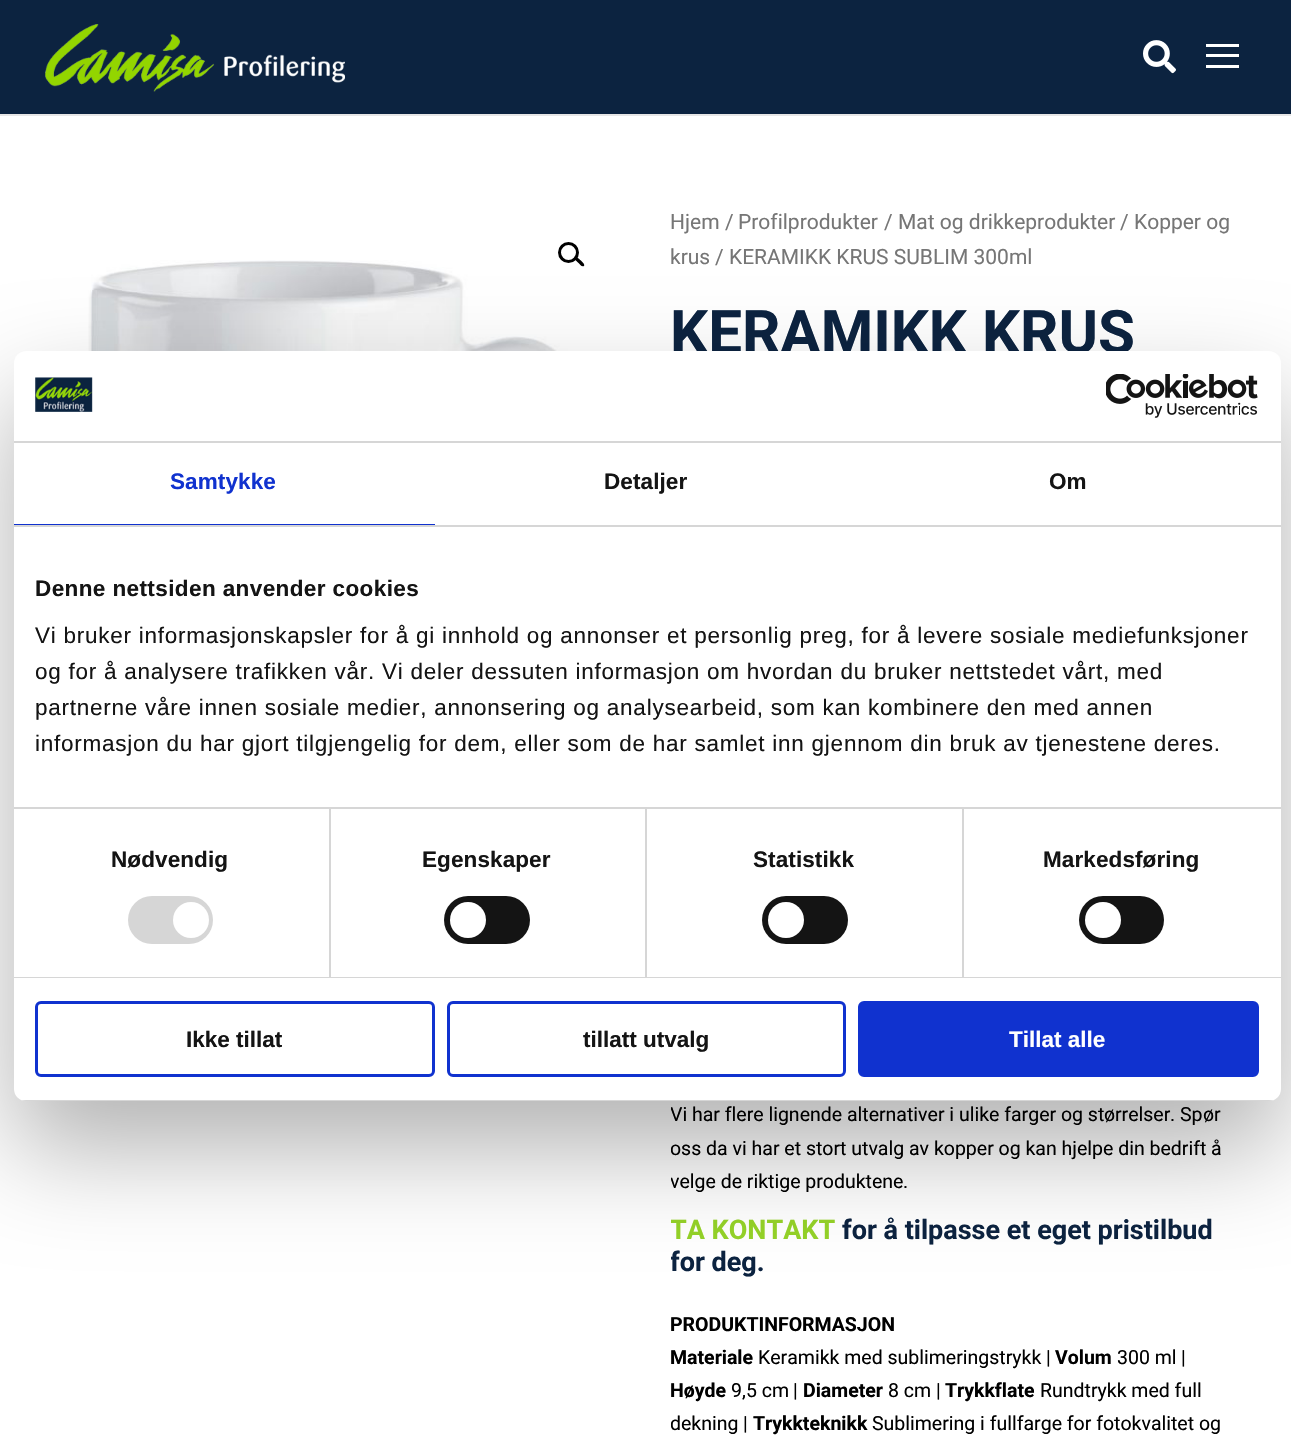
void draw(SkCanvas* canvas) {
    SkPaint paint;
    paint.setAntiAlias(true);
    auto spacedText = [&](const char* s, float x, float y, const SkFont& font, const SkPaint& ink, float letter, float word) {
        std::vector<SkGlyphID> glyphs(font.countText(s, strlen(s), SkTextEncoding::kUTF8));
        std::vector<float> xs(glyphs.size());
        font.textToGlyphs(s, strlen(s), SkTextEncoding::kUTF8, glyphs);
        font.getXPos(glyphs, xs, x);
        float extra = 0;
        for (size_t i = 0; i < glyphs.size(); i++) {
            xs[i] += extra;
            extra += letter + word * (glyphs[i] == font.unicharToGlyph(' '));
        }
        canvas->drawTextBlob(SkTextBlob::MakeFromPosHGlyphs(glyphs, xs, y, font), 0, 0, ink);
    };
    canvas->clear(0xFF0C2340);
    canvas->drawImageRect(SkImages::DeferredFromEncodedData(SkData::MakeFromFileName("img1.png")), SkRect::MakeXYWH(45, 24, 300, 68), SkSamplingOptions());
    canvas->drawImageRect(SkImages::DeferredFromEncodedData(SkData::MakeFromFileName("img2.png")), SkRect::MakeXYWH(1143, 40, 33, 34), SkSamplingOptions());
    paint.setColor(0xFFFFFFFF);
    canvas->drawRect(SkRect::MakeXYWH(1206, 44, 33, 3), paint);
    canvas->drawRect(SkRect::MakeXYWH(1206, 54, 33, 3), paint);
    canvas->drawRect(SkRect::MakeXYWH(1206, 65, 33, 3), paint);
    canvas->drawRect(SkRect::MakeXYWH(0, 116, 1291, 1334), paint);
    paint.setColor(0xFFE6E6E6);
    canvas->drawRect(SkRect::MakeXYWH(0, 114, 1291, 2), paint);
    canvas->drawImageRect(SkImages::DeferredFromEncodedData(SkData::MakeFromFileName("img3.png")), SkRect::MakeXYWH(88, 260, 519, 91), SkSamplingOptions());
    paint.setStyle(SkPaint::kStroke_Style);
    paint.setStrokeWidth(3);
    paint.setColor(0xFF000000);
    canvas->drawCircle(568.5f, 252.5f, 9, paint);
    paint.setStyle(SkPaint::kFill_Style);
    canvas->drawPath(SkPathBuilder().moveTo(575.5f, 257.5f).cubicTo(577, 256, 580, 260, 581, 260.5f).cubicTo(581.5f, 261.5f, 585.5f, 264.5f, 584, 266).cubicTo(582, 267.5f, 579.5f, 264, 578.5f, 263).cubicTo(577.5f, 262, 574, 259.5f, 575.5f, 257.5f).close().detach(), paint);
    SkFont font1(fontMgr->matchFamilyStyle("Roboto", SkFontStyle::Normal()), 21);
    font1.setSubpixel(true);
    paint.setColor(0xFF767676);
    canvas->drawString("Hjem", 670, 229, font1, paint);
    SkFont font2(fontMgr->matchFamilyStyle("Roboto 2", SkFontStyle::Normal()), 21);
    font2.setSubpixel(true);
    canvas->drawString("/", 725, 229, font2, paint);
    canvas->drawString("Profilprodukter", 738, 229, font1, paint);
    canvas->drawString("/", 884, 229, font2, paint);
    canvas->drawString("Mat og drikkeprodukter", 898, 229, font1, paint);
    canvas->drawString("/", 1120, 229, font2, paint);
    canvas->drawString("Kopper og", 1134, 229, font1, paint);
    canvas->drawString("krus", 670, 264, font1, paint);
    canvas->drawString("/", 715, 264, font2, paint);
    canvas->drawString("KERAMIKK KRUS SUBLIM 300ml", 729, 264, font1, paint);
    SkFont font3(fontMgr->matchFamilyStyle("Roboto", SkFontStyle::Bold()), 60);
    font3.setSubpixel(true);
    paint.setColor(0xFF0C2340);
    canvas->drawString("KERAMIKK KRUS", 670, 353, font3, paint);
    canvas->save();
    canvas->clipRect(SkRect::MakeXYWH(671, 456, 576, 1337));
    SkFont font4(fontMgr->matchFamilyStyle("Roboto", SkFontStyle::Normal()), 19.5f);
    font4.setSubpixel(true);
    paint.setColor(0xFF000000);
    canvas->drawString("Vi har flere lignende alternativer i ulike farger og st", 670, 1121, font4, paint);
    canvas->restore();
    SkFont font5(fontMgr->matchFamilyStyle("Roboto 2", SkFontStyle::Normal()), 19.5f);
    font5.setSubpixel(true);
    canvas->drawString("ø", 1104, 1121, font5, paint);
    canvas->drawString("rrelser", 1115, 1121, font4, paint);
    canvas->drawString(".", 1170, 1121, font5, paint);
    canvas->drawString("Sp", 1180, 1121, font4, paint);
    canvas->drawString("ø", 1203, 1121, font5, paint);
    canvas->drawString("r", 1214, 1121, font4, paint);
    canvas->save();
    canvas->clipRect(SkRect::MakeXYWH(671, 456, 576, 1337));
    canvas->drawString("oss da vi har et stort utvalg av kopper og kan hjelpe din bedrift", 670, 1155, font4, paint);
    canvas->restore();
    canvas->drawString("å", 1211, 1155, font5, paint);
    canvas->save();
    canvas->clipRect(SkRect::MakeXYWH(671, 456, 576, 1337));
    canvas->drawString("velge de riktige produktene", 670, 1188, font4, paint);
    canvas->restore();
    canvas->drawString(".", 903, 1188, font5, paint);
    canvas->save();
    canvas->clipRect(SkRect::MakeXYWH(671, 456, 576, 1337));
    SkFont font6(fontMgr->matchFamilyStyle("Roboto", SkFontStyle::Bold()), 27);
    font6.setSubpixel(true);
    paint.setColor(0xFF94D228);
    canvas->drawString("TA KONTAKT", 670, 1239, font6, paint);
    canvas->restore();
    paint.setColor(0xFF0C2340);
    canvas->drawString("for å tilpasse et eget pristilbud", 842, 1239, font6, paint);
    canvas->save();
    canvas->clipRect(SkRect::MakeXYWH(671, 456, 576, 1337));
    canvas->drawString("for deg.", 670, 1271, font6, paint);
    canvas->restore();
    SkFont font7(fontMgr->matchFamilyStyle("Roboto", SkFontStyle::Bold()), 19.5f);
    font7.setSubpixel(true);
    paint.setColor(0xFF000000);
    canvas->drawString("PRODUKTINFORMASJON", 670, 1331, font7, paint);
    canvas->drawString("Materiale", 670, 1364, font7, paint);
    canvas->drawString("Keramikk med sublimeringstrykk", 758, 1364, font4, paint);
    canvas->drawString("|", 1046, 1364, font5, paint);
    canvas->drawString("Volum", 1055, 1364, font7, paint);
    canvas->drawString("300 ml", 1117, 1364, font4, paint);
    canvas->drawString("|", 1181, 1364, font5, paint);
    canvas->drawString("Høyde", 670, 1397, font7, paint);
    canvas->drawString("9", 731, 1397, font4, paint);
    canvas->drawString(",", 742, 1397, font5, paint);
    canvas->drawString("5 cm", 746, 1397, font4, paint);
    canvas->drawString("|", 793, 1397, font5, paint);
    canvas->drawString("Diameter", 803, 1397, font7, paint);
    canvas->drawString("8 cm", 888, 1397, font4, paint);
    canvas->drawString("|", 936, 1397, font5, paint);
    canvas->drawString("Trykkflate", 945, 1397, font7, paint);
    canvas->drawString("Rundtrykk med full", 1040, 1397, font4, paint);
    canvas->save();
    canvas->clipRect(SkRect::MakeXYWH(671, 456, 576, 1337));
    canvas->drawString("dekning", 670, 1430, font4, paint);
    canvas->restore();
    canvas->drawString("|", 743, 1430, font5, paint);
    canvas->drawString("Trykkteknikk", 753, 1430, font7, paint);
    canvas->drawString("Sublimering i fullfarge for fotokvalitet og", 872, 1430, font4, paint);
    paint.setColor(0x4D000000);
    paint.setMaskFilter(SkMaskFilter::MakeBlur(kNormal_SkBlurStyle, 51));
    canvas->drawRoundRect(SkRect::MakeXYWH(14, 399, 1267, 750), 12, 12, paint);
    paint.setMaskFilter(nullptr);
    paint.setColor(0xFFFFFFFF);
    canvas->drawRoundRect(SkRect::MakeXYWH(14, 351, 1267, 750), 12, 12, paint);
    paint.setColor(0xFFD6D6D6);
    canvas->drawRect(SkRect::MakeXYWH(14, 441, 1267, 2), paint);
    canvas->drawImageRect(SkImages::DeferredFromEncodedData(SkData::MakeFromFileName("img4.png")), SkRect::MakeXYWH(35, 377, 58, 35), SkSamplingOptions());
    canvas->drawImageRect(SkImages::DeferredFromEncodedData(SkData::MakeFromFileName("img5.png")), SkRect::MakeXYWH(1106, 374, 152, 44), SkSamplingOptions());
    canvas->drawRect(SkRect::MakeXYWH(14, 525, 1267, 2), paint);
    paint.setColor(0xFF1032CF);
    canvas->drawRect(SkRect::MakeXYWH(14, 524, 421, 1), paint);
    SkFont font8(fontMgr->matchFamilyStyle("Liberation Sans", SkFontStyle::Bold()), 22.5f);
    font8.setSubpixel(true);
    spacedText("Samtykke", 170, 489, font8, paint, 0.1f, 0);
    paint.setColor(0xFF141414);
    spacedText("Detaljer", 604, 489, font8, paint, 0.1f, 0);
    spacedText("Om", 1049, 489, font8, paint, 0.1f, 0);
    paint.setColor(0xFFD6D6D6);
    canvas->drawRect(SkRect::MakeXYWH(14, 807, 1267, 2), paint);
    paint.setColor(0xFF141414);
    spacedText("Denne nettsiden anvender cookies", 35, 596, font8, paint, 0.4f, 0);
    SkFont font9(fontMgr->matchFamilyStyle("Liberation Sans", SkFontStyle::Normal()), 22.5f);
    font9.setSubpixel(true);
    spacedText("Vi bruker informasjonskapsler for å gi innhold og annonser et personlig preg, for å levere sosiale mediefunksjoner", 35, 643, font9, paint, 0.75f, 0);
    spacedText("og for å analysere trafikken vår. Vi deler dessuten informasjon om hvordan du bruker nettstedet vårt, med", 35, 679, font9, paint, 0.75f, 0);
    spacedText("partnerne våre innen sosiale medier, annonsering og analysearbeid, som kan kombinere den med annen", 35, 715, font9, paint, 0.75f, 0);
    spacedText("informasjon du har gjort tilgjengelig for dem, eller som de har samlet inn gjennom din bruk av tjenestene deres.", 35, 751, font9, paint, 0.75f, 0);
    paint.setColor(0xFFD6D6D6);
    canvas->drawRect(SkRect::MakeXYWH(14, 977, 1267, 1), paint);
    canvas->drawRect(SkRect::MakeXYWH(329, 809, 2, 168), paint);
    paint.setColor(0xFF141414);
    spacedText("Nødvendig", 111, 867, font8, paint, 0.1f, 0);
    paint.setColor(0xFFD6D6D6);
    canvas->drawRoundRect(SkRect::MakeXYWH(128, 896, 85, 48), 24, 24, paint);
    paint.setColor(0xFFFFFFFF);
    canvas->drawCircle(191, 920, 18, paint);
    paint.setColor(0xFFD6D6D6);
    canvas->drawRect(SkRect::MakeXYWH(645, 809, 2, 168), paint);
    paint.setColor(0xFF141414);
    spacedText("Egenskaper", 422, 867, font8, paint, 0.1f, 0);
    canvas->drawRoundRect(SkRect::MakeXYWH(444, 896, 86, 48), 24, 24, paint);
    paint.setColor(0xFFFFFFFF);
    canvas->drawCircle(468, 920, 18, paint);
    paint.setColor(0xFFD6D6D6);
    canvas->drawRect(SkRect::MakeXYWH(962, 809, 2, 168), paint);
    paint.setColor(0xFF141414);
    spacedText("Statistikk", 753, 867, font8, paint, 0.1f, 0);
    canvas->drawRoundRect(SkRect::MakeXYWH(762, 896, 86, 48), 24, 24, paint);
    paint.setColor(0xFFFFFFFF);
    canvas->drawCircle(786, 920, 18, paint);
    paint.setColor(0xFF141414);
    spacedText("Markedsføring", 1043, 867, font8, paint, 0.1f, 0);
    canvas->drawRoundRect(SkRect::MakeXYWH(1079, 896, 85, 48), 24, 24, paint);
    paint.setColor(0xFFFFFFFF);
    canvas->drawCircle(1103, 920, 18, paint);
    canvas->save();
    canvas->clipPath(SkPathBuilder().moveTo(26, 351).lineTo(1269, 351).cubicTo(1275.5f, 351, 1281, 356.5f, 1281, 363).lineTo(1281, 1089).cubicTo(1281, 1095.5f, 1275.5f, 1101, 1269, 1101).lineTo(26, 1101).cubicTo(19.5f, 1101, 14, 1095.5f, 14, 1089).lineTo(14, 363).cubicTo(14, 356.5f, 19.5f, 351, 26, 351).close().detach(), true);
    paint.setColor(0xFFD6D6D6);
    canvas->drawRect(SkRect::MakeXYWH(14, 1100, 1267, 1), paint);
    canvas->restore();
    paint.setStyle(SkPaint::kStroke_Style);
    paint.setColor(0xFF1032CF);
    canvas->drawRoundRect(SkRect::MakeXYWH(36.5f, 1002.5f, 397, 73), 4.5f, 4.5f, paint);
    paint.setStyle(SkPaint::kFill_Style);
    paint.setColor(0xFF141414);
    canvas->drawString("Ikke tillat", 186, 1047, font8, paint);
    paint.setStyle(SkPaint::kStroke_Style);
    paint.setColor(0xFF1032CF);
    canvas->drawRoundRect(SkRect::MakeXYWH(448.5f, 1002.5f, 396, 73), 4.5f, 4.5f, paint);
    paint.setStyle(SkPaint::kFill_Style);
    paint.setColor(0xFF141414);
    canvas->drawString("tillatt utvalg", 583, 1047, font8, paint);
    paint.setColor(0xFF1032CF);
    canvas->drawRoundRect(SkRect::MakeXYWH(859.5f, 1002.5f, 398, 73), 4.5f, 4.5f, paint);
    paint.setStyle(SkPaint::kStroke_Style);
    canvas->drawRoundRect(SkRect::MakeXYWH(859.5f, 1002.5f, 398, 73), 4.5f, 4.5f, paint);
    paint.setStyle(SkPaint::kFill_Style);
    paint.setColor(0xFFFFFFFF);
    canvas->drawString("Tillat alle", 1009, 1047, font8, paint);
}
